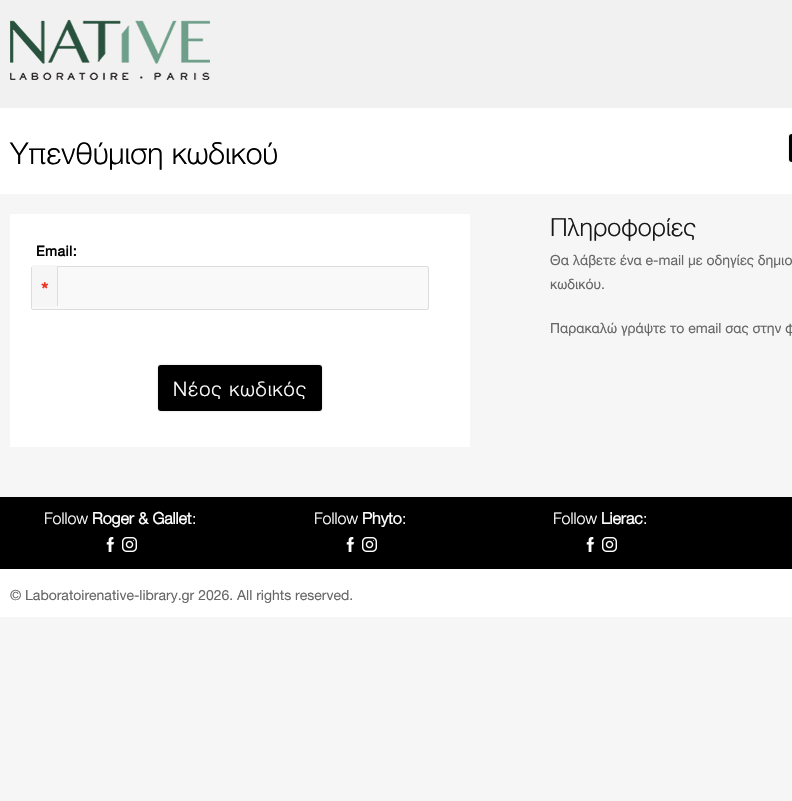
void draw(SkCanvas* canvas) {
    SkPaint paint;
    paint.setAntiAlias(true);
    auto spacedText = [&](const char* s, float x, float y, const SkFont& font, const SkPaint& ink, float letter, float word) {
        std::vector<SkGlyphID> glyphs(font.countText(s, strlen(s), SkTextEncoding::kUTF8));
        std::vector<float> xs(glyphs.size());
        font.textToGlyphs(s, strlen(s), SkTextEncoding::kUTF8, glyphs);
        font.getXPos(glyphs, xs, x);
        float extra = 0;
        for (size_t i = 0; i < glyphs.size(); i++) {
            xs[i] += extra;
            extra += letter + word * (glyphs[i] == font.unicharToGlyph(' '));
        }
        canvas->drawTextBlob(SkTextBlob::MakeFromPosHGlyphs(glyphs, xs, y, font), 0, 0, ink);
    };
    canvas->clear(0xFFF6F6F6);
    paint.setColor(0xFFF1F1F1);
    canvas->drawRect(SkRect::MakeXYWH(0, 0, 792, 108), paint);
    canvas->drawImageRect(SkImages::DeferredFromEncodedData(SkData::MakeFromFileName("img1.png")), SkRect::MakeXYWH(10, 20, 200, 60), SkSamplingOptions());
    paint.setColor(0xFFFFFFFF);
    canvas->drawRect(SkRect::MakeXYWH(0, 108, 792, 86), paint);
    SkFont font1(fontMgr->matchFamilyStyle("Helvetica Neue", SkFontStyle(300, SkFontStyle::kNormal_Width, SkFontStyle::kUpright_Slant)), 30);
    font1.setSubpixel(true);
    paint.setColor(0xFF000000);
    canvas->drawString("Υπενθύμιση κωδικού", 10, 164, font1, paint);
    paint.setColor(0x33000000);
    paint.setMaskFilter(SkMaskFilter::MakeBlur(kNormal_SkBlurStyle, 1));
    canvas->drawRoundRect(SkRect::MakeXYWH(789, 134, 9, 28), 3, 3, paint);
    paint.setMaskFilter(nullptr);
    paint.setColor(0xFF000000);
    canvas->drawRoundRect(SkRect::MakeXYWH(789, 134, 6, 28), 3, 3, paint);
    paint.setColor(0xFFFFFFFF);
    canvas->drawRect(SkRect::MakeXYWH(10, 214, 460, 233), paint);
    SkFont font2(fontMgr->matchFamilyStyle("Helvetica Neue", SkFontStyle::Bold()), 14);
    font2.setSubpixel(true);
    paint.setColor(0xFF000000);
    spacedText("Email:", 36, 256, font2, paint, 0.5f, 0);
    paint.setColor(0xFFF9F9F9);
    canvas->drawRoundRect(SkRect::MakeXYWH(31.5f, 266.5f, 397, 43), 1.5f, 1.5f, paint);
    paint.setStyle(SkPaint::kStroke_Style);
    paint.setStrokeWidth(1);
    paint.setColor(0xFFDDDDDD);
    canvas->drawRoundRect(SkRect::MakeXYWH(31.5f, 266.5f, 397, 43), 1.5f, 1.5f, paint);
    paint.setStyle(SkPaint::kFill_Style);
    paint.setColor(0xFFF6F6F6);
    canvas->drawRoundRect(SkRect::MakeXYWH(32, 265, 26, 42), 2, 2, paint);
    paint.setColor(0xFFDDDDDD);
    canvas->drawRect(SkRect::MakeXYWH(57, 266, 1, 40), paint);
    SkFont font3(fontMgr->matchFamilyStyle("Helvetica Neue", SkFontStyle::Bold()), 20);
    font3.setSubpixel(true);
    paint.setColor(0xFFEE3322);
    canvas->drawString("*", 41, 297, font3, paint);
    paint.setColor(0x33000000);
    paint.setMaskFilter(SkMaskFilter::MakeBlur(kNormal_SkBlurStyle, 1));
    canvas->drawRoundRect(SkRect::MakeXYWH(158, 365, 164, 46), 3, 3, paint);
    paint.setMaskFilter(nullptr);
    paint.setColor(0xFF000000);
    canvas->drawRoundRect(SkRect::MakeXYWH(158, 365, 164, 46), 3, 3, paint);
    SkFont font4(fontMgr->matchFamilyStyle("Helvetica Neue", SkFontStyle(300, SkFontStyle::kNormal_Width, SkFontStyle::kUpright_Slant)), 20);
    font4.setSubpixel(true);
    paint.setColor(0xFFFFFFFF);
    spacedText("Νέος κωδικός", 173, 396, font4, paint, 1, 0);
    SkFont font5(fontMgr->matchFamilyStyle("Helvetica Neue", SkFontStyle(300, SkFontStyle::kNormal_Width, SkFontStyle::kUpright_Slant)), 25);
    font5.setSubpixel(true);
    paint.setColor(0xFF181818);
    canvas->drawString("Πληροφορίες", 550, 236, font5, paint);
    SkFont font6(fontMgr->matchFamilyStyle("Helvetica Neue", SkFontStyle::Normal()), 14);
    font6.setSubpixel(true);
    paint.setColor(0xFF676767);
    canvas->drawString("Θα λάβετε ένα e-mail με οδηγίες δημιο", 550, 265, font6, paint);
    canvas->drawString("κωδικόυ.", 550, 289, font6, paint);
    canvas->drawString("Παρακαλώ γράψτε το email σας στην φ", 550, 333, font6, paint);
    paint.setColor(0xFF000000);
    canvas->drawRect(SkRect::MakeXYWH(0, 497, 792, 72), paint);
    SkFont font7(fontMgr->matchFamilyStyle("Helvetica Neue", SkFontStyle(300, SkFontStyle::kNormal_Width, SkFontStyle::kUpright_Slant)), 16);
    font7.setSubpixel(true);
    paint.setColor(0xFFFFFFFF);
    canvas->drawString("Follow", 44, 524, font7, paint);
    SkFont font8(fontMgr->matchFamilyStyle("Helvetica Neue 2", SkFontStyle::Bold()), 16);
    font8.setSubpixel(true);
    canvas->drawString("Roger & Gallet", 92, 524, font8, paint);
    canvas->drawString(":", 192, 524, font7, paint);
    canvas->drawImageRect(SkImages::DeferredFromEncodedData(SkData::MakeFromFileName("img2.png")), SkRect::MakeXYWH(106, 537, 9, 15), SkSamplingOptions());
    canvas->drawImageRect(SkImages::DeferredFromEncodedData(SkData::MakeFromFileName("img3.png")), SkRect::MakeXYWH(122, 537, 15, 15), SkSamplingOptions());
    canvas->drawString("Follow", 314, 524, font7, paint);
    canvas->drawString("Phyto", 362, 524, font8, paint);
    canvas->drawString(":", 402, 524, font7, paint);
    canvas->drawImageRect(SkImages::DeferredFromEncodedData(SkData::MakeFromFileName("img2.png")), SkRect::MakeXYWH(346, 537, 9, 15), SkSamplingOptions());
    canvas->drawImageRect(SkImages::DeferredFromEncodedData(SkData::MakeFromFileName("img3.png")), SkRect::MakeXYWH(362, 537, 15, 15), SkSamplingOptions());
    canvas->drawString("Follow", 553, 524, font7, paint);
    canvas->drawString("Lierac", 601, 524, font8, paint);
    canvas->drawString(":", 643, 524, font7, paint);
    canvas->drawImageRect(SkImages::DeferredFromEncodedData(SkData::MakeFromFileName("img2.png")), SkRect::MakeXYWH(586, 537, 9, 15), SkSamplingOptions());
    canvas->drawImageRect(SkImages::DeferredFromEncodedData(SkData::MakeFromFileName("img3.png")), SkRect::MakeXYWH(602, 537, 15, 15), SkSamplingOptions());
    canvas->drawRect(SkRect::MakeXYWH(0, 569, 792, 48), paint);
    paint.setColor(0xFF676767);
    canvas->drawString("© Laboratoirenative-library.gr 2026. All rights reserved.", 10, 600, font6, paint);
}
